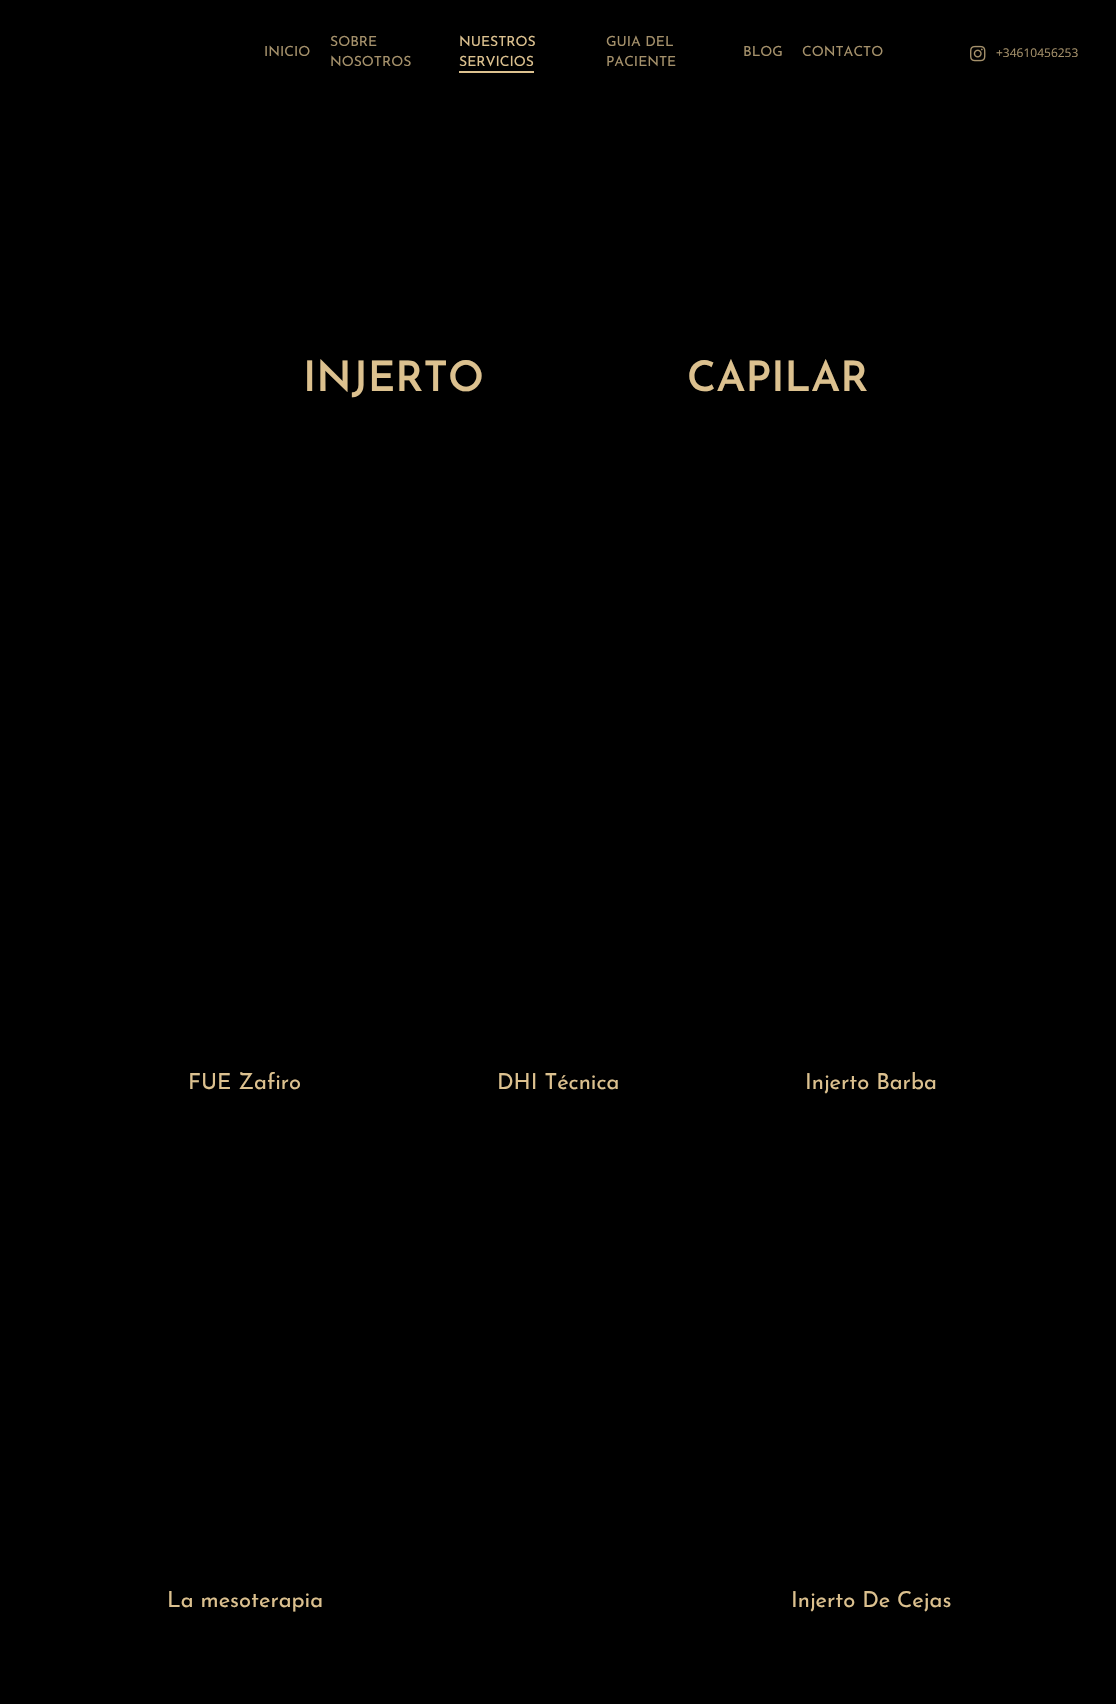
void draw(SkCanvas* canvas) {
    SkPaint paint;
    paint.setAntiAlias(true);
    canvas->clear(0xFF000000);
    SkFont font1(fontMgr->matchFamilyStyle("Josefin Sans", SkFontStyle::Normal()), 14);
    font1.setSubpixel(true);
    paint.setColor(0xFFA5916B);
    canvas->drawString("INICIO", 264, 56, font1, paint);
    canvas->drawString("SOBRE", 330, 46, font1, paint);
    canvas->drawString("NOSOTROS", 330, 66, font1, paint);
    paint.setColor(0xFFDCC18F);
    canvas->drawString("NUESTROS", 459, 46, font1, paint);
    canvas->drawString("SERVICIOS", 459, 66, font1, paint);
    canvas->drawRect(SkRect::MakeXYWH(459, 71, 75, 2), paint);
    paint.setColor(0xFFA5916B);
    canvas->drawString("GUIA DEL", 606, 46, font1, paint);
    canvas->drawString("PACIENTE", 606, 66, font1, paint);
    canvas->drawString("BLOG", 743, 56, font1, paint);
    canvas->drawString("CONTACTO", 802, 56, font1, paint);
    canvas->drawImageRect(SkImages::DeferredFromEncodedData(SkData::MakeFromFileName("img1.png")), SkRect::MakeXYWH(970, 45, 16, 17), SkSamplingOptions());
    SkFont font2(fontMgr->matchFamilyStyle("Open Sans", SkFontStyle::Normal()), 12);
    font2.setSubpixel(true);
    canvas->drawString("+34610456253", 996, 57, font2, paint);
    SkFont font3(fontMgr->matchFamilyStyle("Josefin Sans", SkFontStyle(600, SkFontStyle::kNormal_Width, SkFontStyle::kUpright_Slant)), 42);
    font3.setSubpixel(true);
    paint.setColor(0xFFDCC18F);
    canvas->drawString("INJERTO", 303, 391, font3, paint);
    canvas->drawString("CAPILAR", 687, 391, font3, paint);
    SkFont font4(fontMgr->matchFamilyStyle("Josefin Sans", SkFontStyle::Normal()), 22);
    font4.setSubpixel(true);
    canvas->drawString("FUE Zafiro", 188, 1089, font4, paint);
    canvas->drawString("La mesoterapia", 167, 1607, font4, paint);
    canvas->drawString("DHI Técnica", 497, 1089, font4, paint);
    canvas->drawString("Injerto Barba", 805, 1089, font4, paint);
    canvas->drawString("Injerto De Cejas", 791, 1607, font4, paint);
}
